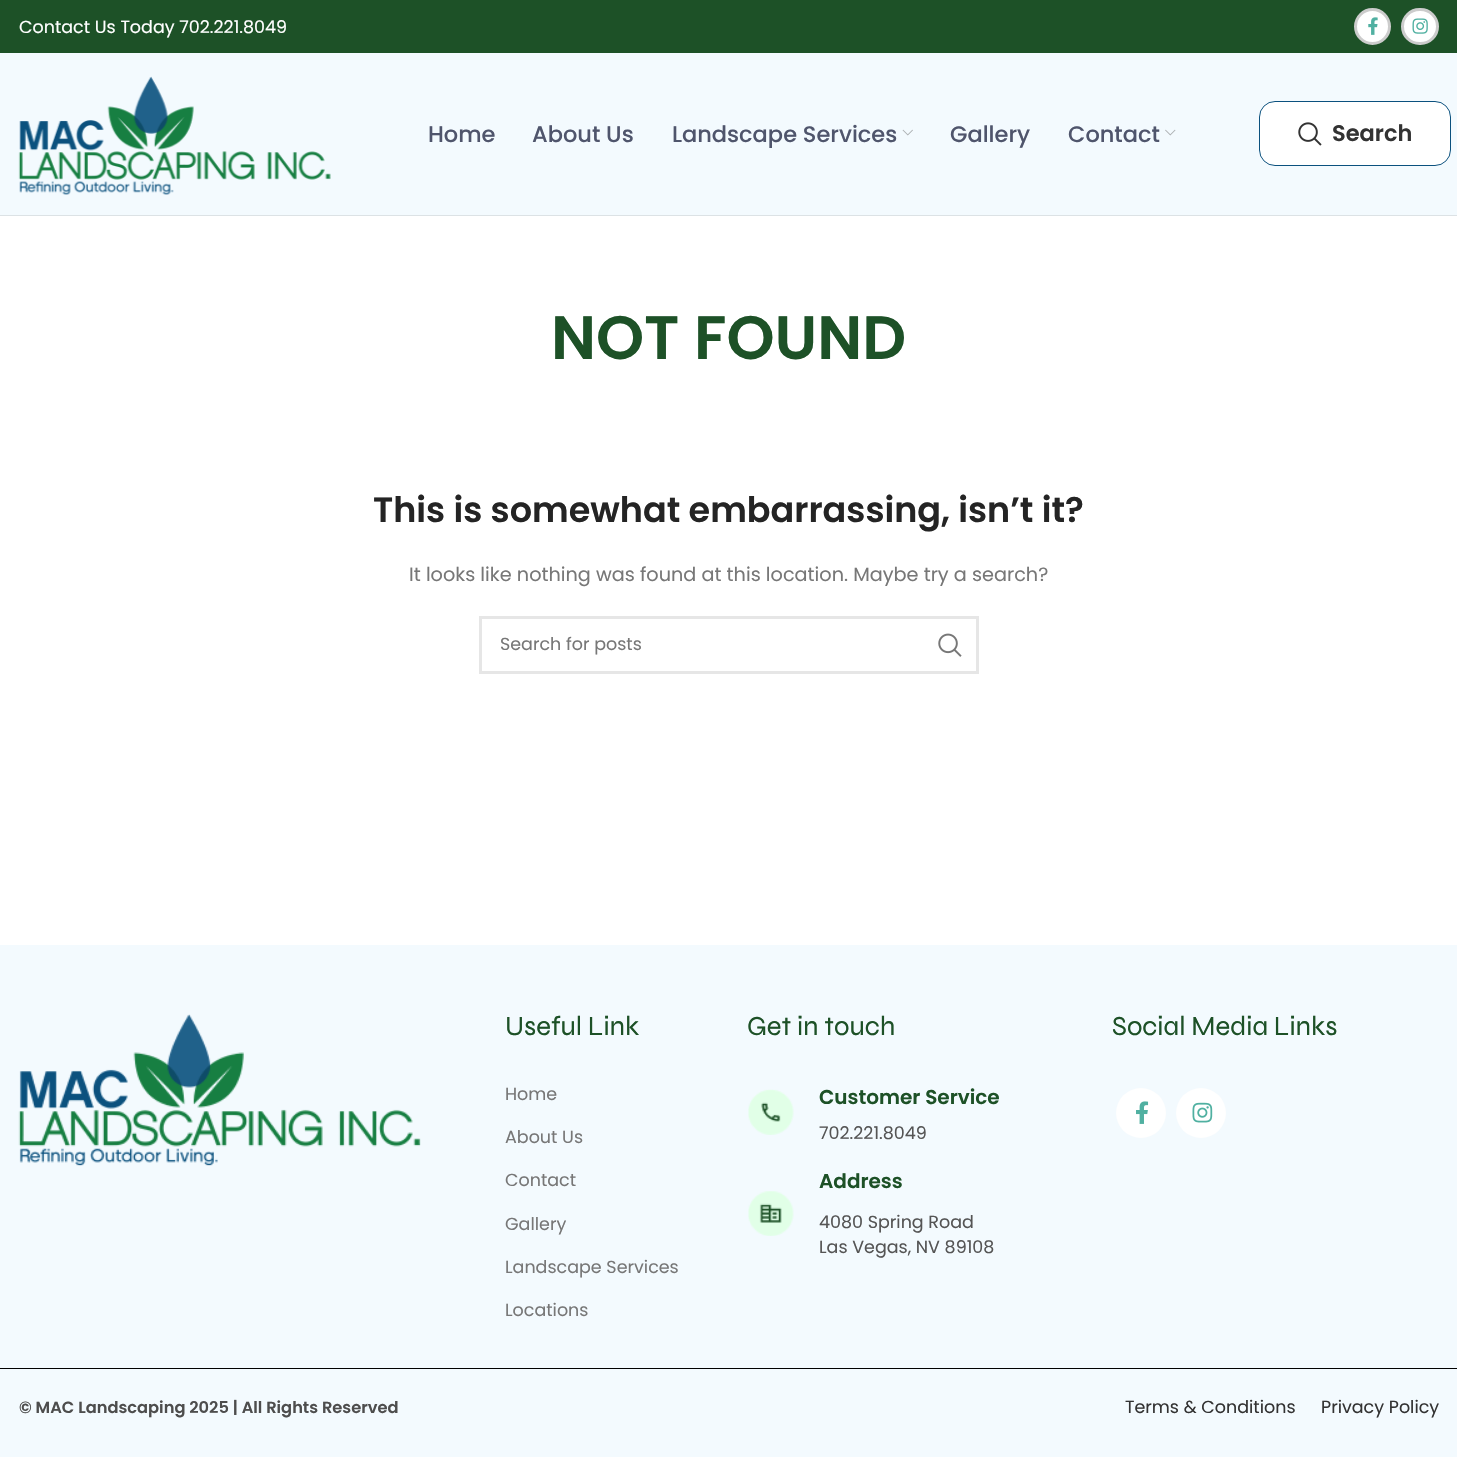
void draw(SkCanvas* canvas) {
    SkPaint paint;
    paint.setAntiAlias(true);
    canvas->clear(0xFFFFFFFF);
    paint.setColor(0xFF1D5127);
    canvas->drawRect(SkRect::MakeXYWH(0, 0, 1457, 53), paint);
    SkFont font1(fontMgr->matchFamilyStyle("Poppins", SkFontStyle::Normal()), 17.5f);
    font1.setSubpixel(true);
    paint.setColor(0xFFFFFFFF);
    canvas->drawString("Contact Us Today 702.221.8049", 19, 33, font1, paint);
    canvas->drawCircle(1372.5f, 26.5f, 17, paint);
    paint.setStyle(SkPaint::kStroke_Style);
    paint.setStrokeWidth(3);
    paint.setColor(0xFFCCCCCC);
    canvas->drawCircle(1372.5f, 26.5f, 17, paint);
    canvas->drawImageRect(SkImages::DeferredFromEncodedData(SkData::MakeFromFileName("img1.png")), SkRect::MakeXYWH(1368, 17, 10, 18), SkSamplingOptions());
    paint.setStyle(SkPaint::kFill_Style);
    paint.setColor(0xFFFFFFFF);
    canvas->drawRoundRect(SkRect::MakeXYWH(1402.5f, 9.5f, 35, 34), 17, 17, paint);
    paint.setStyle(SkPaint::kStroke_Style);
    paint.setColor(0xFFCCCCCC);
    canvas->drawRoundRect(SkRect::MakeXYWH(1402.5f, 9.5f, 35, 34), 17, 17, paint);
    canvas->drawImageRect(SkImages::DeferredFromEncodedData(SkData::MakeFromFileName("img2.png")), SkRect::MakeXYWH(1412, 18, 16, 16), SkSamplingOptions());
    paint.setStyle(SkPaint::kFill_Style);
    paint.setColor(0xFFF3FAFE);
    canvas->drawRect(SkRect::MakeXYWH(0, 53, 1457, 162), paint);
    paint.setColor(0xFFDCE2E5);
    canvas->drawRect(SkRect::MakeXYWH(0, 215, 1457, 1), paint);
    canvas->drawImageRect(SkImages::DeferredFromEncodedData(SkData::MakeFromFileName("img3.png")), SkRect::MakeXYWH(18, 76, 313, 119), SkSamplingOptions());
    SkFont font2(fontMgr->matchFamilyStyle("Poppins", SkFontStyle(500, SkFontStyle::kNormal_Width, SkFontStyle::kUpright_Slant)), 22.5f);
    font2.setSubpixel(true);
    paint.setColor(0xFF4F556C);
    canvas->drawString("Home", 428, 142, font2, paint);
    canvas->drawString("About Us", 532, 142, font2, paint);
    canvas->drawString("Landscape Services", 672, 142, font2, paint);
    canvas->drawImageRect(SkImages::DeferredFromEncodedData(SkData::MakeFromFileName("img4.png")), SkRect::MakeXYWH(902, 129, 11, 7), SkSamplingOptions());
    canvas->drawString("Gallery", 950, 142, font2, paint);
    canvas->drawString("Contact", 1068, 142, font2, paint);
    canvas->drawImageRect(SkImages::DeferredFromEncodedData(SkData::MakeFromFileName("img5.png")), SkRect::MakeXYWH(1165, 129, 11, 7), SkSamplingOptions());
    paint.setColor(0xFFFFFFFF);
    canvas->drawRoundRect(SkRect::MakeXYWH(1259.5f, 101.5f, 191, 64), 15.5f, 15.5f, paint);
    paint.setStyle(SkPaint::kStroke_Style);
    paint.setStrokeWidth(1);
    paint.setColor(0xFF0B517E);
    canvas->drawRoundRect(SkRect::MakeXYWH(1259.5f, 101.5f, 191, 64), 15.5f, 15.5f, paint);
    canvas->drawImageRect(SkImages::DeferredFromEncodedData(SkData::MakeFromFileName("img6.png")), SkRect::MakeXYWH(1298, 122, 24, 24), SkSamplingOptions());
    SkFont font3(fontMgr->matchFamilyStyle("Poppins", SkFontStyle(600, SkFontStyle::kNormal_Width, SkFontStyle::kUpright_Slant)), 22.5f);
    font3.setSubpixel(true);
    paint.setStyle(SkPaint::kFill_Style);
    paint.setColor(0xFF333333);
    canvas->drawString("Search", 1332, 141, font3, paint);
    SkFont font4(fontMgr->matchFamilyStyle("Poppins", SkFontStyle(600, SkFontStyle::kNormal_Width, SkFontStyle::kUpright_Slant)), 61.25f);
    font4.setSubpixel(true);
    paint.setColor(0xFF1D5127);
    canvas->drawString("NOT FOUND", 551, 359, font4, paint);
    SkFont font5(fontMgr->matchFamilyStyle("Poppins", SkFontStyle(600, SkFontStyle::kNormal_Width, SkFontStyle::kUpright_Slant)), 35);
    font5.setSubpixel(true);
    paint.setColor(0xFF242424);
    canvas->drawString("This is somewhat embarrassing, isn’t it?", 373, 522, font5, paint);
    SkFont font6(fontMgr->matchFamilyStyle("Poppins", SkFontStyle::Normal()), 19.25f);
    font6.setSubpixel(true);
    paint.setColor(0xFF777777);
    canvas->drawString("It looks like nothing was found at this location. Maybe try a search?", 409, 581, font6, paint);
    paint.setStyle(SkPaint::kStroke_Style);
    paint.setStrokeWidth(3);
    paint.setColor(0xFFE6E6E6);
    canvas->drawRect(SkRect::MakeXYWH(480.5f, 617.5f, 497, 55), paint);
    paint.setStyle(SkPaint::kFill_Style);
    paint.setColor(0xFF777777);
    canvas->drawString("Search for posts", 500, 650, font1, paint);
    canvas->drawImageRect(SkImages::DeferredFromEncodedData(SkData::MakeFromFileName("img7.png")), SkRect::MakeXYWH(938, 633, 24, 24), SkSamplingOptions());
    paint.setColor(0xFFF3FAFE);
    canvas->drawRect(SkRect::MakeXYWH(0, 945, 1457, 512), paint);
    canvas->drawImageRect(SkImages::DeferredFromEncodedData(SkData::MakeFromFileName("img8.png")), SkRect::MakeXYWH(18, 1014, 403, 152), SkSamplingOptions());
    SkFont font7(fontMgr->matchFamilyStyle("Syne", SkFontStyle::Normal()), 27.5f);
    font7.setSubpixel(true);
    paint.setColor(0xFF1D5127);
    canvas->drawString("Useful Link", 505, 1035, font7, paint);
    paint.setColor(0xFF777777);
    canvas->drawString("Home", 505, 1100, font1, paint);
    canvas->drawString("About Us", 505, 1143, font1, paint);
    canvas->drawString("Contact", 505, 1186, font1, paint);
    canvas->drawString("Gallery", 505, 1230, font1, paint);
    canvas->drawString("Landscape Services", 505, 1273, font1, paint);
    canvas->drawString("Locations", 505, 1316, font1, paint);
    paint.setColor(0xFF1D5127);
    canvas->drawString("Get in touch", 747, 1035, font7, paint);
    canvas->drawImageRect(SkImages::DeferredFromEncodedData(SkData::MakeFromFileName("img9.png")), SkRect::MakeXYWH(748, 1089, 46, 46), SkSamplingOptions());
    SkFont font8(fontMgr->matchFamilyStyle("Poppins", SkFontStyle(600, SkFontStyle::kNormal_Width, SkFontStyle::kUpright_Slant)), 20);
    font8.setSubpixel(true);
    canvas->drawString("Customer Service", 819, 1104, font8, paint);
    paint.setColor(0xFF555555);
    canvas->drawString("702.221.8049", 819, 1139, font1, paint);
    canvas->drawImageRect(SkImages::DeferredFromEncodedData(SkData::MakeFromFileName("img10.png")), SkRect::MakeXYWH(748, 1191, 46, 45), SkSamplingOptions());
    paint.setColor(0xFF1D5127);
    canvas->drawString("Address", 819, 1188, font8, paint);
    paint.setColor(0xFF555555);
    canvas->drawString("4080 Spring Road", 819, 1228, font1, paint);
    canvas->drawString("Las Vegas, NV 89108", 819, 1253, font1, paint);
    paint.setColor(0xFF1D5127);
    canvas->drawString("Social Media Links", 1112, 1035, font7, paint);
    paint.setColor(0xFFFFFFFF);
    canvas->drawCircle(1141, 1113, 25, paint);
    canvas->drawImageRect(SkImages::DeferredFromEncodedData(SkData::MakeFromFileName("img11.png")), SkRect::MakeXYWH(1136, 1101, 13, 23), SkSamplingOptions());
    canvas->drawCircle(1201, 1113, 25, paint);
    canvas->drawImageRect(SkImages::DeferredFromEncodedData(SkData::MakeFromFileName("img12.png")), SkRect::MakeXYWH(1192, 1102, 21, 21), SkSamplingOptions());
    paint.setColor(0xFF000000);
    canvas->drawRect(SkRect::MakeXYWH(0, 1368, 1457, 1), paint);
    SkFont font9(fontMgr->matchFamilyStyle("Poppins", SkFontStyle(600, SkFontStyle::kNormal_Width, SkFontStyle::kUpright_Slant)), 16.25f);
    font9.setSubpixel(true);
    paint.setColor(0xFF4D4D4D);
    canvas->drawString("© MAC Landscaping 2025 | All Rights Reserved", 19, 1413, font9, paint);
    paint.setColor(0xFF333333);
    canvas->drawString("Terms & Conditions", 1125, 1413, font1, paint);
    canvas->drawString("Privacy Policy", 1321, 1413, font1, paint);
}
